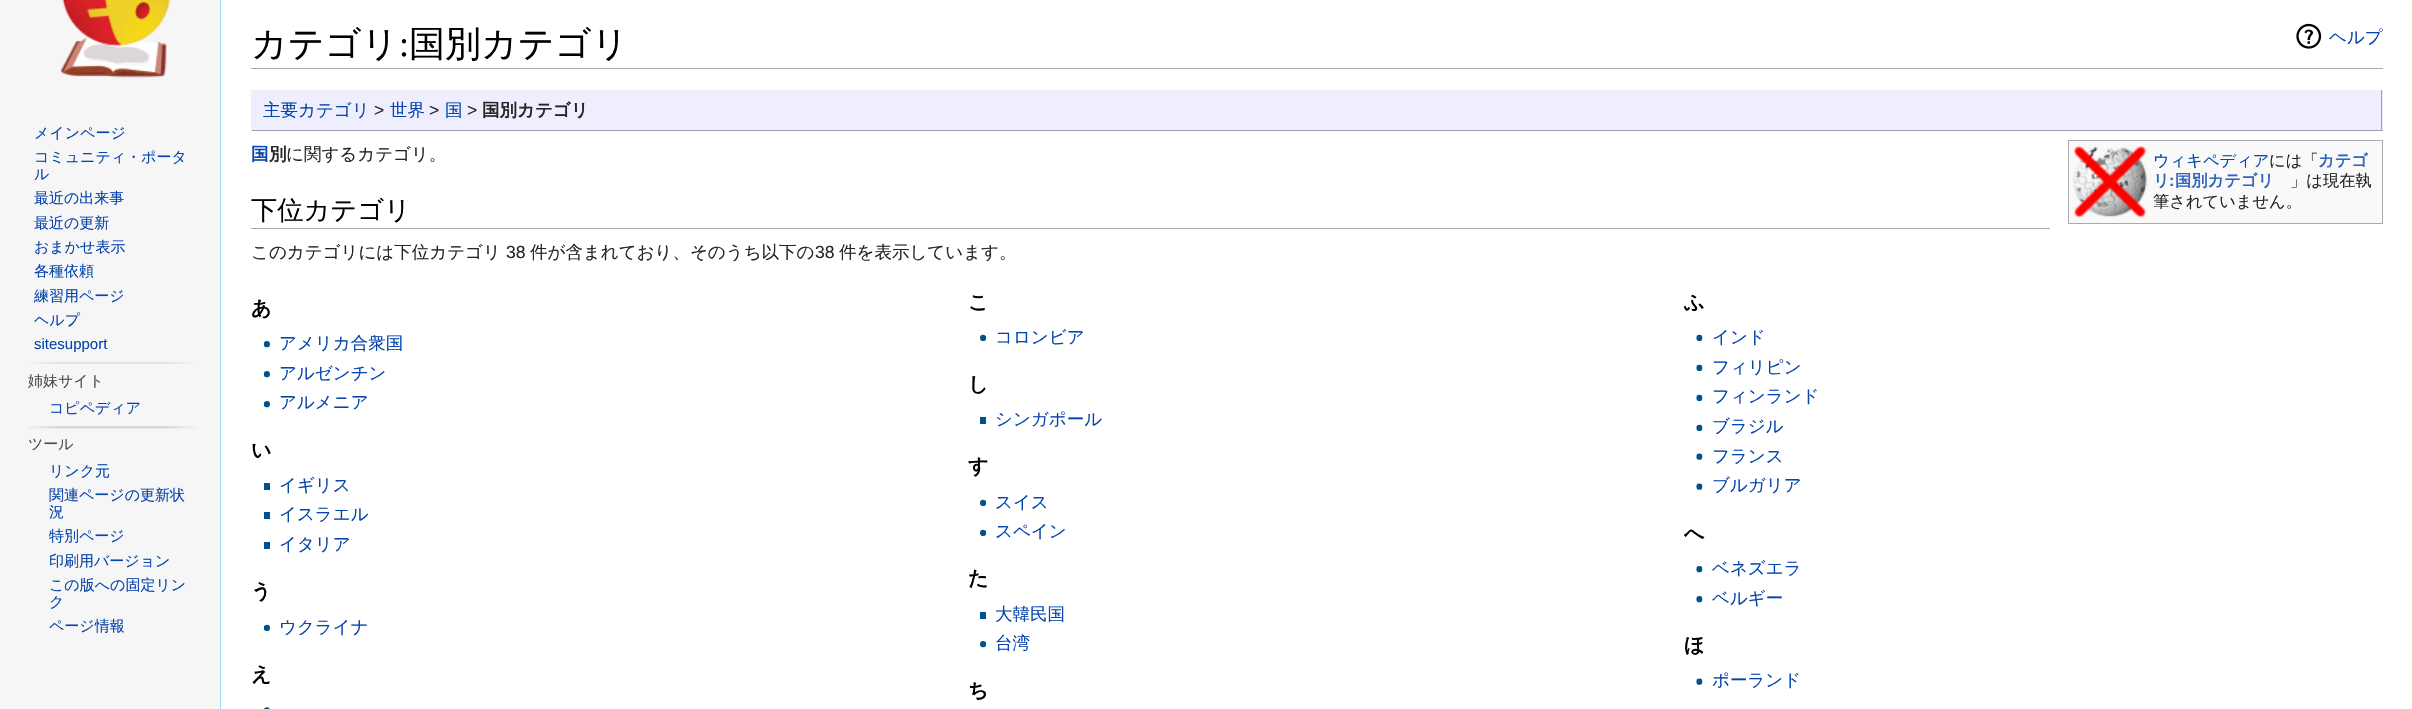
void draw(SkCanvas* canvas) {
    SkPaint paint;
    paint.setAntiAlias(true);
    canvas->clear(0xFFF6F6F6);
    canvas->drawImageRect(SkImages::DeferredFromEncodedData(SkData::MakeFromFileName("img1.png")), SkRect::MakeXYWH(60, 0, 111, 78), SkSamplingOptions());
    SkFont font1(fontMgr->matchFamilyStyle("WenQuanYi Zen Hei", SkFontStyle(500, SkFontStyle::kNormal_Width, SkFontStyle::kUpright_Slant)), 15);
    font1.setSubpixel(true);
    paint.setColor(0xFF0645AD);
    canvas->drawString("メインページ", 34, 138, font1, paint);
    canvas->drawString("コミュニティ・ポータ", 34, 162, font1, paint);
    canvas->drawString("ル", 34, 179, font1, paint);
    canvas->drawString("最近の出来事", 34, 203, font1, paint);
    canvas->drawString("最近の更新", 34, 228, font1, paint);
    canvas->drawString("おまかせ表示", 34, 252, font1, paint);
    canvas->drawString("各種依頼", 34, 276, font1, paint);
    canvas->drawString("練習用ページ", 34, 301, font1, paint);
    canvas->drawString("ヘルプ", 34, 325, font1, paint);
    SkFont font2(fontMgr->matchFamilyStyle("Liberation Sans", SkFontStyle::Normal()), 15);
    font2.setSubpixel(true);
    canvas->drawString("sitesupport", 34, 349, font2, paint);
    canvas->drawImageRect(SkImages::DeferredFromEncodedData(SkData::MakeFromFileName("img2.png")), SkRect::MakeXYWH(27, 362, 170, 2), SkSamplingOptions());
    paint.setColor(0xFF4D4D4D);
    canvas->drawString("姉妹サイト", 28, 386, font1, paint);
    paint.setColor(0xFF0645AD);
    canvas->drawString("コピペディア", 49, 413, font1, paint);
    canvas->drawImageRect(SkImages::DeferredFromEncodedData(SkData::MakeFromFileName("img3.png")), SkRect::MakeXYWH(27, 426, 170, 3), SkSamplingOptions());
    paint.setColor(0xFF4D4D4D);
    canvas->drawString("ツール", 28, 449, font1, paint);
    paint.setColor(0xFF0645AD);
    canvas->drawString("リンク元", 49, 476, font1, paint);
    canvas->drawString("関連ページの更新状", 49, 500, font1, paint);
    canvas->drawString("況", 49, 517, font1, paint);
    canvas->drawString("特別ページ", 49, 541, font1, paint);
    canvas->drawString("印刷用バージョン", 49, 566, font1, paint);
    canvas->drawString("この版への固定リン", 49, 590, font1, paint);
    canvas->drawString("ク", 49, 607, font1, paint);
    canvas->drawString("ページ情報", 49, 631, font1, paint);
    paint.setColor(0xFFFFFFFF);
    canvas->drawRect(SkRect::MakeXYWH(221, 0, 2191, 709), paint);
    paint.setColor(0xFFA7D7F9);
    canvas->drawRect(SkRect::MakeXYWH(220, 0, 1, 709), paint);
    paint.setColor(0xFFAAAAAA);
    canvas->drawRect(SkRect::MakeXYWH(251, 68, 2132, 1), paint);
    SkFont font3(fontMgr->matchFamilyStyle("WenQuanYi Zen Hei", SkFontStyle(500, SkFontStyle::kNormal_Width, SkFontStyle::kUpright_Slant)), 36);
    font3.setSubpixel(true);
    paint.setColor(0xFF000000);
    canvas->drawString("カテゴリ", 251, 56, font3, paint);
    SkFont font4(fontMgr->matchFamilyStyle("Liberation Serif", SkFontStyle::Normal()), 36);
    font4.setSubpixel(true);
    canvas->drawString(":", 399, 56, font4, paint);
    canvas->drawString("国別カテゴリ", 409, 56, font3, paint);
    canvas->drawImageRect(SkImages::DeferredFromEncodedData(SkData::MakeFromFileName("img4.png")), SkRect::MakeXYWH(2296, 23, 26, 26), SkSamplingOptions());
    SkFont font5(fontMgr->matchFamilyStyle("WenQuanYi Zen Hei", SkFontStyle(500, SkFontStyle::kNormal_Width, SkFontStyle::kUpright_Slant)), 17.5f);
    font5.setSubpixel(true);
    paint.setColor(0xFF0645AD);
    canvas->drawString("ヘルプ", 2329, 43, font5, paint);
    paint.setColor(0xFFEEEEFF);
    canvas->drawRect(SkRect::MakeXYWH(252, 90, 2131, 40), paint);
    paint.setColor(0xFF9F9FAA);
    canvas->drawRect(SkRect::MakeXYWH(2381, 90, 1, 41), paint);
    canvas->drawRect(SkRect::MakeXYWH(251, 130, 2132, 1), paint);
    paint.setColor(0xFFEEEEFF);
    canvas->drawRect(SkRect::MakeXYWH(251, 90, 1, 41), paint);
    paint.setColor(0xFF0645AD);
    canvas->drawString("主要カテゴリ", 263, 116, font5, paint);
    SkFont font6(fontMgr->matchFamilyStyle("Liberation Sans", SkFontStyle::Normal()), 17.5f);
    font6.setSubpixel(true);
    paint.setColor(0xFF252525);
    canvas->drawString(">", 374, 116, font6, paint);
    paint.setColor(0xFF0645AD);
    canvas->drawString("世界", 390, 116, font5, paint);
    paint.setColor(0xFF252525);
    canvas->drawString(">", 429, 116, font6, paint);
    paint.setColor(0xFF0645AD);
    canvas->drawString("国", 445, 116, font5, paint);
    paint.setColor(0xFF252525);
    canvas->drawString(">", 467, 116, font6, paint);
    SkFont font7(fontMgr->matchFamilyStyle("WenQuanYi Zen Hei", SkFontStyle::Bold()), 17.5f);
    font7.setSubpixel(true);
    canvas->drawString("国別カテゴリ", 482, 116, font7, paint);
    paint.setColor(0xFF0645AD);
    canvas->drawString("国", 251, 160, font7, paint);
    paint.setColor(0xFF252525);
    canvas->drawString("別", 269, 160, font7, paint);
    canvas->drawString("に関するカテゴリ。", 286, 160, font5, paint);
    paint.setColor(0xFFF9F9F9);
    canvas->drawRect(SkRect::MakeXYWH(2068.5f, 140.5f, 314, 83), paint);
    paint.setStyle(SkPaint::kStroke_Style);
    paint.setStrokeWidth(1);
    paint.setColor(0xFFAAAAAA);
    canvas->drawRect(SkRect::MakeXYWH(2068.5f, 140.5f, 314, 83), paint);
    canvas->drawImageRect(SkImages::DeferredFromEncodedData(SkData::MakeFromFileName("img5.png")), SkRect::MakeXYWH(2072, 145, 76, 73), SkSamplingOptions());
    SkFont font8(fontMgr->matchFamilyStyle("WenQuanYi Zen Hei", SkFontStyle(500, SkFontStyle::kNormal_Width, SkFontStyle::kUpright_Slant)), 16.25f);
    font8.setSubpixel(true);
    paint.setStyle(SkPaint::kFill_Style);
    paint.setColor(0xFF0645AD);
    canvas->drawString("ウィキペディア", 2153, 166, font8, paint);
    paint.setColor(0xFF252525);
    canvas->drawString("には「", 2269, 166, font8, paint);
    SkFont font9(fontMgr->matchFamilyStyle("WenQuanYi Zen Hei", SkFontStyle::Bold()), 16.25f);
    font9.setSubpixel(true);
    paint.setColor(0xFF3366BB);
    canvas->drawString("カテゴ", 2318, 166, font9, paint);
    canvas->drawString("リ", 2153, 186, font9, paint);
    SkFont font10(fontMgr->matchFamilyStyle("Liberation Sans", SkFontStyle::Bold()), 16.25f);
    font10.setSubpixel(true);
    canvas->drawString(":", 2169, 186, font10, paint);
    canvas->drawString("国別カテゴリ", 2175, 186, font9, paint);
    paint.setColor(0xFF252525);
    canvas->drawString("」は現在執", 2290, 186, font8, paint);
    canvas->drawString("筆されていません。", 2153, 207, font8, paint);
    paint.setColor(0xFFAAAAAA);
    canvas->drawRect(SkRect::MakeXYWH(251, 228, 1799, 1), paint);
    SkFont font11(fontMgr->matchFamilyStyle("WenQuanYi Zen Hei", SkFontStyle(500, SkFontStyle::kNormal_Width, SkFontStyle::kUpright_Slant)), 26.25f);
    font11.setSubpixel(true);
    paint.setColor(0xFF000000);
    canvas->drawString("下位カテゴリ", 251, 219, font11, paint);
    paint.setColor(0xFF252525);
    canvas->drawString("このカテゴリには下位カテゴリ", 251, 258, font5, paint);
    canvas->drawString("38", 506, 258, font6, paint);
    canvas->drawString("件が含まれており、そのうち以下の", 530, 258, font5, paint);
    canvas->drawString("38", 815, 258, font6, paint);
    canvas->drawString("件を表示しています。", 839, 258, font5, paint);
    SkFont font12(fontMgr->matchFamilyStyle("WenQuanYi Zen Hei", SkFontStyle::Bold()), 20);
    font12.setSubpixel(true);
    paint.setColor(0xFF000000);
    canvas->drawString("あ", 251, 315, font12, paint);
    canvas->drawImageRect(SkImages::DeferredFromEncodedData(SkData::MakeFromFileName("img6.png")), SkRect::MakeXYWH(264, 341, 6, 7), SkSamplingOptions());
    paint.setColor(0xFF0645AD);
    canvas->drawString("アメリカ合衆国", 279, 349, font5, paint);
    canvas->drawImageRect(SkImages::DeferredFromEncodedData(SkData::MakeFromFileName("img6.png")), SkRect::MakeXYWH(264, 371, 6, 7), SkSamplingOptions());
    canvas->drawString("アルゼンチン", 279, 379, font5, paint);
    canvas->drawImageRect(SkImages::DeferredFromEncodedData(SkData::MakeFromFileName("img6.png")), SkRect::MakeXYWH(264, 401, 6, 7), SkSamplingOptions());
    canvas->drawString("アルメニア", 279, 408, font5, paint);
    paint.setColor(0xFF000000);
    canvas->drawString("こ", 968, 309, font12, paint);
    canvas->drawImageRect(SkImages::DeferredFromEncodedData(SkData::MakeFromFileName("img7.png")), SkRect::MakeXYWH(980, 334, 6, 7), SkSamplingOptions());
    paint.setColor(0xFF0645AD);
    canvas->drawString("コロンビア", 995, 343, font5, paint);
    paint.setColor(0xFF000000);
    canvas->drawString("ふ", 1684, 309, font12, paint);
    canvas->drawImageRect(SkImages::DeferredFromEncodedData(SkData::MakeFromFileName("img8.png")), SkRect::MakeXYWH(1696, 334, 7, 7), SkSamplingOptions());
    paint.setColor(0xFF0645AD);
    canvas->drawString("インド", 1712, 343, font5, paint);
    canvas->drawImageRect(SkImages::DeferredFromEncodedData(SkData::MakeFromFileName("img8.png")), SkRect::MakeXYWH(1696, 364, 7, 7), SkSamplingOptions());
    canvas->drawString("フィリピン", 1712, 373, font5, paint);
    canvas->drawImageRect(SkImages::DeferredFromEncodedData(SkData::MakeFromFileName("img8.png")), SkRect::MakeXYWH(1696, 394, 7, 7), SkSamplingOptions());
    canvas->drawString("フィンランド", 1712, 402, font5, paint);
    canvas->drawImageRect(SkImages::DeferredFromEncodedData(SkData::MakeFromFileName("img8.png")), SkRect::MakeXYWH(1696, 424, 7, 7), SkSamplingOptions());
    canvas->drawString("ブラジル", 1712, 432, font5, paint);
    canvas->drawImageRect(SkImages::DeferredFromEncodedData(SkData::MakeFromFileName("img9.png")), SkRect::MakeXYWH(1696, 453, 7, 7), SkSamplingOptions());
    canvas->drawString("フランス", 1712, 462, font5, paint);
    canvas->drawImageRect(SkImages::DeferredFromEncodedData(SkData::MakeFromFileName("img9.png")), SkRect::MakeXYWH(1696, 483, 7, 7), SkSamplingOptions());
    canvas->drawString("ブルガリア", 1712, 491, font5, paint);
    paint.setColor(0xFF000000);
    canvas->drawString("し", 968, 391, font12, paint);
    paint.setColor(0xFF00528C);
    canvas->drawRect(SkRect::MakeXYWH(980, 417, 6, 7), paint);
    paint.setColor(0xFF0645AD);
    canvas->drawString("シンガポール", 995, 425, font5, paint);
    paint.setColor(0xFF000000);
    canvas->drawString("い", 251, 457, font12, paint);
    paint.setColor(0xFF00528C);
    canvas->drawRect(SkRect::MakeXYWH(264, 483, 6, 7), paint);
    paint.setColor(0xFF0645AD);
    canvas->drawString("イギリス", 279, 491, font5, paint);
    paint.setColor(0xFF00528C);
    canvas->drawRect(SkRect::MakeXYWH(264, 512, 6, 7), paint);
    paint.setColor(0xFF0645AD);
    canvas->drawString("イスラエル", 279, 520, font5, paint);
    paint.setColor(0xFF00528C);
    canvas->drawRect(SkRect::MakeXYWH(264, 542, 6, 7), paint);
    paint.setColor(0xFF0645AD);
    canvas->drawString("イタリア", 279, 550, font5, paint);
    paint.setColor(0xFF000000);
    canvas->drawString("す", 968, 473, font12, paint);
    canvas->drawImageRect(SkImages::DeferredFromEncodedData(SkData::MakeFromFileName("img7.png")), SkRect::MakeXYWH(980, 499, 6, 7), SkSamplingOptions());
    paint.setColor(0xFF0645AD);
    canvas->drawString("スイス", 995, 508, font5, paint);
    canvas->drawImageRect(SkImages::DeferredFromEncodedData(SkData::MakeFromFileName("img7.png")), SkRect::MakeXYWH(980, 529, 6, 7), SkSamplingOptions());
    canvas->drawString("スペイン", 995, 537, font5, paint);
    paint.setColor(0xFF000000);
    canvas->drawString("う", 251, 598, font12, paint);
    canvas->drawImageRect(SkImages::DeferredFromEncodedData(SkData::MakeFromFileName("img10.png")), SkRect::MakeXYWH(264, 624, 6, 7), SkSamplingOptions());
    paint.setColor(0xFF0645AD);
    canvas->drawString("ウクライナ", 279, 633, font5, paint);
    paint.setColor(0xFF000000);
    canvas->drawString("た", 968, 585, font12, paint);
    paint.setColor(0xFF00528C);
    canvas->drawRect(SkRect::MakeXYWH(980, 612, 6, 7), paint);
    paint.setColor(0xFF0645AD);
    canvas->drawString("大韓民国", 995, 620, font5, paint);
    canvas->drawImageRect(SkImages::DeferredFromEncodedData(SkData::MakeFromFileName("img11.png")), SkRect::MakeXYWH(980, 641, 6, 7), SkSamplingOptions());
    canvas->drawString("台湾", 995, 649, font5, paint);
    paint.setColor(0xFF000000);
    canvas->drawString("へ", 1684, 540, font12, paint);
    canvas->drawImageRect(SkImages::DeferredFromEncodedData(SkData::MakeFromFileName("img12.png")), SkRect::MakeXYWH(1696, 566, 7, 7), SkSamplingOptions());
    paint.setColor(0xFF0645AD);
    canvas->drawString("ベネズエラ", 1712, 574, font5, paint);
    canvas->drawImageRect(SkImages::DeferredFromEncodedData(SkData::MakeFromFileName("img12.png")), SkRect::MakeXYWH(1696, 596, 7, 7), SkSamplingOptions());
    canvas->drawString("ベルギー", 1712, 604, font5, paint);
    paint.setColor(0xFF000000);
    canvas->drawString("え", 251, 681, font12, paint);
    canvas->drawImageRect(SkImages::DeferredFromEncodedData(SkData::MakeFromFileName("img13.png")), SkRect::MakeXYWH(264, 707, 6, 2), SkSamplingOptions());
    canvas->drawString("ほ", 1684, 652, font12, paint);
    canvas->drawImageRect(SkImages::DeferredFromEncodedData(SkData::MakeFromFileName("img9.png")), SkRect::MakeXYWH(1696, 678, 7, 7), SkSamplingOptions());
    paint.setColor(0xFF0645AD);
    canvas->drawString("ポーランド", 1712, 686, font5, paint);
    paint.setColor(0xFF000000);
    canvas->drawString("ち", 968, 697, font12, paint);
}
